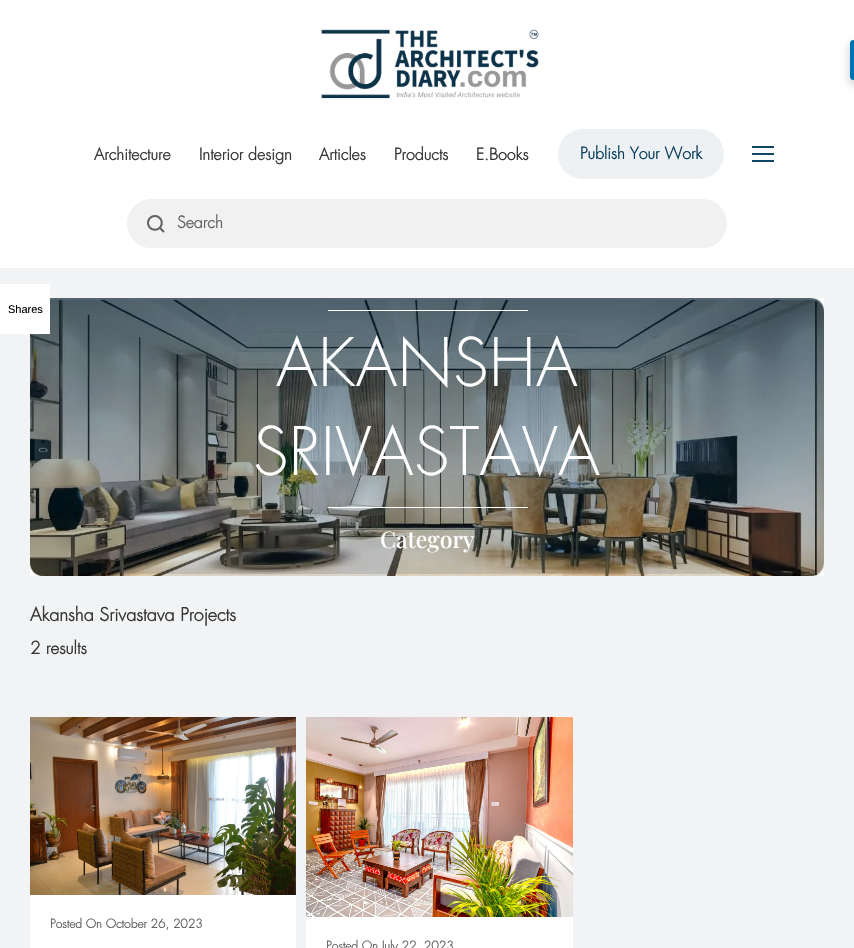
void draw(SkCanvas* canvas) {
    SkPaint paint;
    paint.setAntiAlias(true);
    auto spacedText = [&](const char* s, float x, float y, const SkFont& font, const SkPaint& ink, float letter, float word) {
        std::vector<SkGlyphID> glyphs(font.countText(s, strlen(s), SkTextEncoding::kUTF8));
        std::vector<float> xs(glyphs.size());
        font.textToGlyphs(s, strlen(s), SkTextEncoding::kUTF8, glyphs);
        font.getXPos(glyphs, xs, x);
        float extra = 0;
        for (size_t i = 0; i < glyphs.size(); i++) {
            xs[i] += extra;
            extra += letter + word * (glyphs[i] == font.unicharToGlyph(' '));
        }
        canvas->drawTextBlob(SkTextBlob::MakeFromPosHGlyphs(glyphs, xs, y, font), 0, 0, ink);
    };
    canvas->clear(0xFFFFFFFF);
    paint.setColor(0x33000000);
    paint.setMaskFilter(SkMaskFilter::MakeBlur(kNormal_SkBlurStyle, 5));
    canvas->drawRoundRect(SkRect::MakeXYWH(850, 44, 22, 40), 3, 3, paint);
    paint.setMaskFilter(nullptr);
    paint.setColor(0xFF0073B7);
    canvas->drawPath(SkPathBuilder().moveTo(853, 40).lineTo(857, 40).lineTo(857, 80).lineTo(853, 80).cubicTo(851.5f, 80, 850, 78.5f, 850, 77).lineTo(850, 43).cubicTo(850, 41.5f, 851.5f, 40, 853, 40).close().detach(), paint);
    canvas->drawImageRect(SkImages::DeferredFromEncodedData(SkData::MakeFromFileName("img1.png")), SkRect::MakeXYWH(321, 29, 218, 70), SkSamplingOptions());
    SkFont font1(fontMgr->matchFamilyStyle("Futura", SkFontStyle::Bold()), 16);
    font1.setSubpixel(true);
    paint.setColor(0xFF363636);
    canvas->drawString("Architecture", 94, 160, font1, paint);
    canvas->drawString("Interior design", 199, 160, font1, paint);
    canvas->drawString("Articles", 319, 160, font1, paint);
    canvas->drawString("Products", 394, 160, font1, paint);
    canvas->drawString("E.Books", 476, 160, font1, paint);
    paint.setColor(0xFFEDF1F3);
    canvas->drawRoundRect(SkRect::MakeXYWH(558, 129, 166, 50), 25, 25, paint);
    paint.setColor(0xFF0F415E);
    canvas->drawString("Publish Your Work", 580, 159, font1, paint);
    paint.setColor(0xFF104665);
    canvas->drawRect(SkRect::MakeXYWH(752, 153, 22, 2), paint);
    canvas->drawRect(SkRect::MakeXYWH(752, 146, 22, 2), paint);
    canvas->drawRect(SkRect::MakeXYWH(752, 160, 22, 2), paint);
    paint.setColor(0xFFF1F1F1);
    canvas->drawRoundRect(SkRect::MakeXYWH(127, 199, 600, 49), 24.5f, 24.5f, paint);
    canvas->drawImageRect(SkImages::DeferredFromEncodedData(SkData::MakeFromFileName("img2.png")), SkRect::MakeXYWH(147, 215, 18, 18), SkSamplingOptions());
    paint.setColor(0xFF636363);
    canvas->drawString("Search", 177, 228, font1, paint);
    paint.setColor(0xFFF1F3F4);
    canvas->drawRect(SkRect::MakeXYWH(0, 268, 854, 680), paint);
    canvas->drawImageRect(SkImages::DeferredFromEncodedData(SkData::MakeFromFileName("img3.png")), SkRect::MakeXYWH(30, 298, 794, 278), SkSamplingOptions());
    paint.setColor(0xFFFFFFFF);
    canvas->drawRect(SkRect::MakeXYWH(0, 284, 50, 50), paint);
    SkFont font2(fontMgr->matchFamilyStyle("Liberation Sans", SkFontStyle::Normal()), 11);
    font2.setSubpixel(true);
    paint.setColor(0xFF000000);
    canvas->drawString("Shares", 8, 313, font2, paint);
    paint.setColor(0xFFFFFFFF);
    canvas->drawRect(SkRect::MakeXYWH(328, 310, 200, 1), paint);
    SkFont font3(fontMgr->matchFamilyStyle("Futura", SkFontStyle(300, SkFontStyle::kNormal_Width, SkFontStyle::kUpright_Slant)), 65);
    font3.setSubpixel(true);
    spacedText("AKANSHA", 276, 386, font3, paint, 0.5f, 0);
    spacedText("SRIVASTAVA", 253, 475, font3, paint, 0.5f, 0);
    canvas->drawRect(SkRect::MakeXYWH(328, 507, 200, 1), paint);
    SkFont font4(fontMgr->matchFamilyStyle("Playfair Display", SkFontStyle(500, SkFontStyle::kNormal_Width, SkFontStyle::kUpright_Slant)), 23);
    font4.setSubpixel(true);
    canvas->drawString("Category", 380, 548, font4, paint);
    SkFont font5(fontMgr->matchFamilyStyle("Futura", SkFontStyle::Bold()), 18);
    font5.setSubpixel(true);
    paint.setColor(0xFF363636);
    canvas->drawString("Akansha Srivastava Projects", 30, 621, font5, paint);
    SkFont font6(fontMgr->matchFamilyStyle("Futura", SkFontStyle::Bold()), 17);
    font6.setSubpixel(true);
    canvas->drawString("2 results", 30, 654, font6, paint);
    paint.setColor(0xFFFFFFFF);
    canvas->drawRect(SkRect::MakeXYWH(30, 895, 266, 53), paint);
    canvas->drawImageRect(SkImages::DeferredFromEncodedData(SkData::MakeFromFileName("img4.png")), SkRect::MakeXYWH(30, 717, 266, 178), SkSamplingOptions());
    SkFont font7(fontMgr->matchFamilyStyle("Futura", SkFontStyle::Bold()), 12);
    font7.setSubpixel(true);
    paint.setColor(0xFF636363);
    canvas->drawString("Posted On October 26, 2023", 50, 928, font7, paint);
    paint.setColor(0xFFFFFFFF);
    canvas->drawRect(SkRect::MakeXYWH(306, 917, 267, 31), paint);
    canvas->drawImageRect(SkImages::DeferredFromEncodedData(SkData::MakeFromFileName("img5.png")), SkRect::MakeXYWH(306, 717, 267, 200), SkSamplingOptions());
    paint.setColor(0xFF636363);
    canvas->drawString("Posted On July 22, 2023", 326, 950, font7, paint);
}
